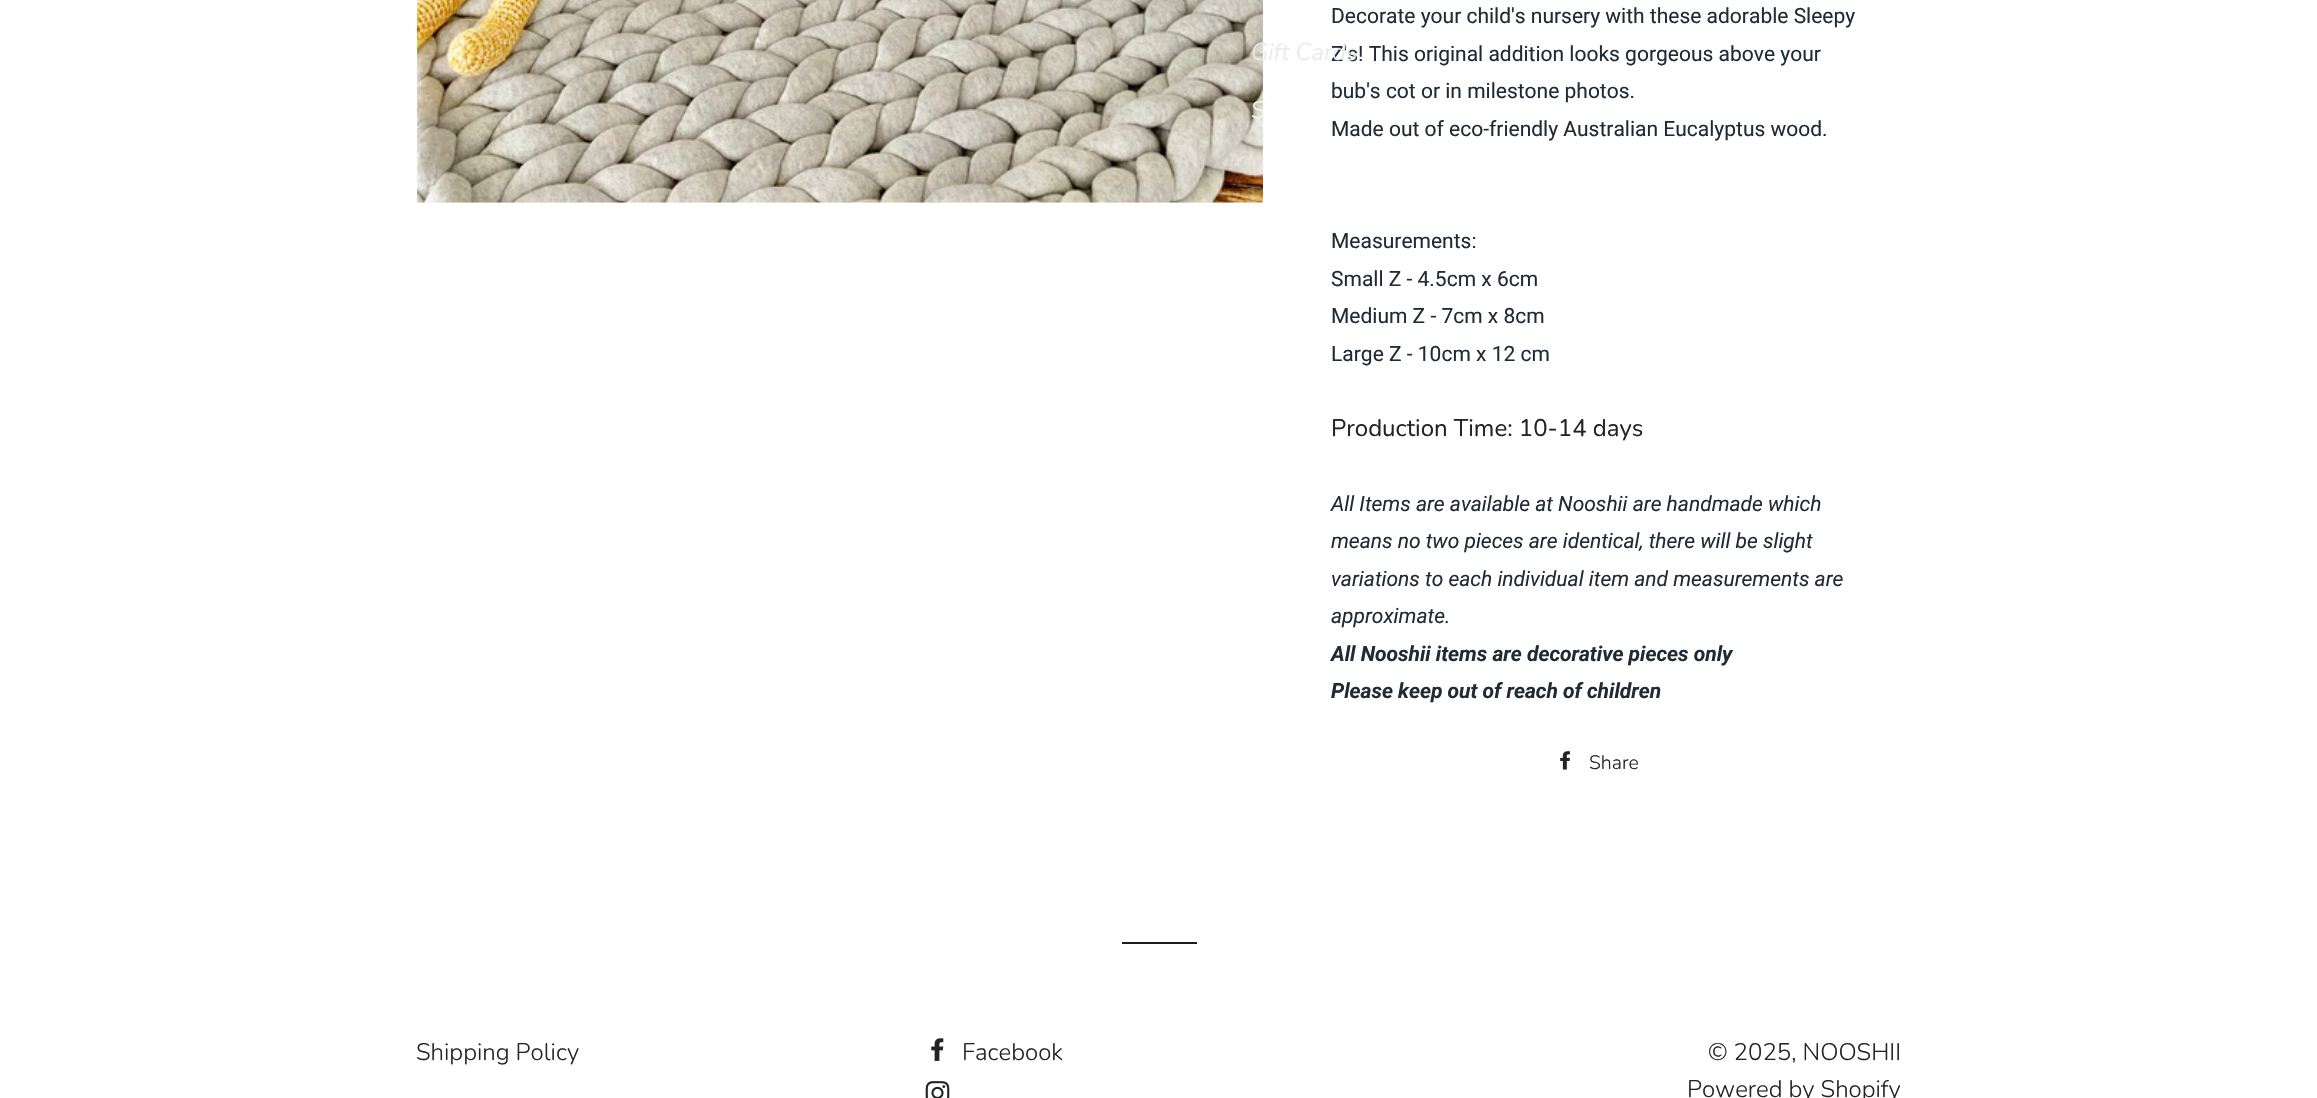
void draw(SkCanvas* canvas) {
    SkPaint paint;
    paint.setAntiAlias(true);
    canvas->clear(0xFFFFFFFF);
    paint.setColor(0xFFF7F7F7);
    canvas->drawRect(SkRect::MakeXYWH(417, 202, 846, 1), paint);
    canvas->drawImageRect(SkImages::DeferredFromEncodedData(SkData::MakeFromFileName("img1.png")), SkRect::MakeXYWH(417, 0, 846, 203), SkSamplingOptions());
    SkFont font1(fontMgr->matchFamilyStyle("Roboto", SkFontStyle::Normal()), 21);
    font1.setSubpixel(true);
    paint.setColor(0xFF212B36);
    canvas->drawString("Decorate your child's nursery with these adorable Sleepy", 1331, 23, font1, paint);
    canvas->drawString("Z's! This original addition looks gorgeous above your", 1331, 61, font1, paint);
    canvas->drawString("bub's cot or in milestone photos.", 1331, 98, font1, paint);
    canvas->drawString("Made out of eco-friendly Australian Eucalyptus wood.", 1331, 136, font1, paint);
    canvas->drawString("Measurements:", 1331, 248, font1, paint);
    canvas->drawString("Small Z - 4.5cm x 6cm", 1331, 286, font1, paint);
    canvas->drawString("Medium Z - 7cm x 8cm", 1331, 323, font1, paint);
    canvas->drawString("Large Z - 10cm x 12 cm", 1331, 361, font1, paint);
    SkFont font2(fontMgr->matchFamilyStyle("Nunito", SkFontStyle::Normal()), 24);
    font2.setSubpixel(true);
    paint.setColor(0xFF222323);
    canvas->drawString("Production Time: 10-14 days", 1331, 436, font2, paint);
    SkFont font3(fontMgr->matchFamilyStyle("Roboto", SkFontStyle::Italic()), 21);
    font3.setSubpixel(true);
    paint.setColor(0xFF212B36);
    canvas->drawString("All Items are available at Nooshii are handmade which", 1331, 511, font3, paint);
    canvas->drawString("means no two pieces are identical, there will be slight", 1331, 548, font3, paint);
    canvas->drawString("variations to each individual item and measurements are", 1331, 586, font3, paint);
    canvas->drawString("approximate.", 1331, 623, font3, paint);
    SkFont font4(fontMgr->matchFamilyStyle("Roboto", SkFontStyle::BoldItalic()), 21);
    font4.setSubpixel(true);
    canvas->drawString("All Nooshii items are decorative pieces only", 1331, 661, font4, paint);
    canvas->drawString("Please keep out of reach of children", 1331, 698, font4, paint);
    canvas->drawImageRect(SkImages::DeferredFromEncodedData(SkData::MakeFromFileName("img2.png")), SkRect::MakeXYWH(1560, 751, 10, 19), SkSamplingOptions());
    SkFont font5(fontMgr->matchFamilyStyle("Nunito", SkFontStyle(300, SkFontStyle::kNormal_Width, SkFontStyle::kUpright_Slant)), 19.5f);
    font5.setSubpixel(true);
    paint.setColor(0xFF222323);
    canvas->drawString("Share", 1589, 769, font5, paint);
    paint.setColor(0xFF1C1D1D);
    canvas->drawRect(SkRect::MakeXYWH(1122, 942, 75, 2), paint);
    SkFont font6(fontMgr->matchFamilyStyle("Nunito", SkFontStyle(300, SkFontStyle::kNormal_Width, SkFontStyle::kUpright_Slant)), 24);
    font6.setSubpixel(true);
    paint.setColor(0xFF222323);
    canvas->drawString("Shipping Policy", 416, 1060, font6, paint);
    canvas->drawImageRect(SkImages::DeferredFromEncodedData(SkData::MakeFromFileName("img3.png")), SkRect::MakeXYWH(931, 1038, 13, 23), SkSamplingOptions());
    canvas->drawString("Facebook", 962, 1060, font6, paint);
    canvas->drawImageRect(SkImages::DeferredFromEncodedData(SkData::MakeFromFileName("img4.png")), SkRect::MakeXYWH(925, 1081, 25, 17), SkSamplingOptions());
    canvas->drawString("© 2025, NOOSHII", 1708, 1060, font6, paint);
    canvas->drawString("Powered by Shopify", 1687, 1097, font6, paint);
    SkFont font7(fontMgr->matchFamilyStyle("Nunito", SkFontStyle(300, SkFontStyle::kNormal_Width, SkFontStyle::kItalic_Slant)), 24);
    font7.setSubpixel(true);
    paint.setColor(0xFFE9E9E9);
    canvas->drawString("Gift Cards", 1251, 60, font7, paint);
    paint.setColor(0xFFF6F5F3);
    canvas->drawString("S", 1251, 118, font7, paint);
}
